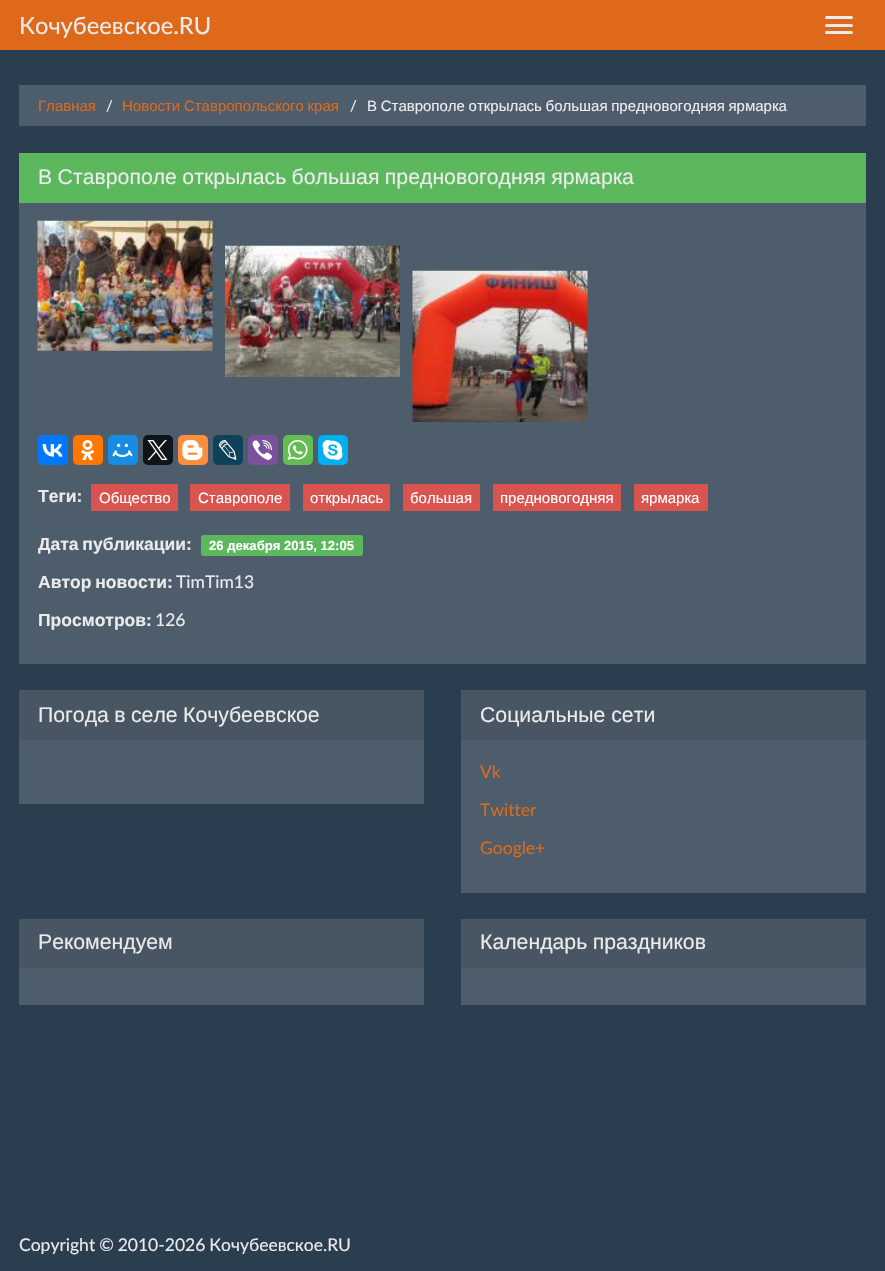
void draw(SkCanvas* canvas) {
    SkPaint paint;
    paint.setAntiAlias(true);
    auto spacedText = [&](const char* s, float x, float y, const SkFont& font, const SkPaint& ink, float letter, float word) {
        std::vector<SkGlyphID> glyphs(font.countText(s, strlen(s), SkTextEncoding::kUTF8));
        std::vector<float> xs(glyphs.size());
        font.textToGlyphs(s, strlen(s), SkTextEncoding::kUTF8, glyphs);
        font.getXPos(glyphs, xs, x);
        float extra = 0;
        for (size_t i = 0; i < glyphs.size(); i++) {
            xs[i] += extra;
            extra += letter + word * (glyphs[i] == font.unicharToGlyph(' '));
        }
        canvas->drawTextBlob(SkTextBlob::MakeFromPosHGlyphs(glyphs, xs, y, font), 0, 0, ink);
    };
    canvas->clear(0xFF2B3E50);
    paint.setColor(0xFFDF691A);
    canvas->drawRect(SkRect::MakeXYWH(0, 0, 885, 50), paint);
    SkFont font1(fontMgr->matchFamilyStyle("Lato", SkFontStyle::Normal()), 23.75f);
    font1.setSubpixel(true);
    paint.setColor(0xFFEBEBEB);
    canvas->drawString("Кочубеевское.RU", 19, 34, font1, paint);
    canvas->drawRoundRect(SkRect::MakeXYWH(825, 16, 28, 3), 1.5f, 1.5f, paint);
    canvas->drawRoundRect(SkRect::MakeXYWH(825, 24, 28, 3), 1.5f, 1.5f, paint);
    canvas->drawRoundRect(SkRect::MakeXYWH(825, 31, 28, 3), 1.5f, 1.5f, paint);
    paint.setColor(0xFF4E5D6C);
    canvas->drawRect(SkRect::MakeXYWH(19, 85, 847, 41), paint);
    SkFont font2(fontMgr->matchFamilyStyle("Liberation Sans", SkFontStyle::Normal()), 15);
    font2.setSubpixel(true);
    paint.setColor(0xFFDF691A);
    canvas->drawString("Главная", 38, 111, font2, paint);
    SkFont font3(fontMgr->matchFamilyStyle("Lato", SkFontStyle::Normal()), 15);
    font3.setSubpixel(true);
    paint.setColor(0xFFEBEBEB);
    canvas->drawString("/", 106, 111, font3, paint);
    paint.setColor(0xFFDF691A);
    spacedText("Новости Ставропольского края", 122, 111, font2, paint, 0, -0.5f);
    paint.setColor(0xFFEBEBEB);
    canvas->drawString("/", 350, 111, font3, paint);
    spacedText("В Ставрополе открылась большая предновогодняя ярмарка", 367, 111, font2, paint, 0, -0.5f);
    paint.setColor(0xFF4E5D6C);
    canvas->drawRect(SkRect::MakeXYWH(19, 203, 847, 461), paint);
    paint.setColor(0xFF5CB85C);
    canvas->drawRect(SkRect::MakeXYWH(19, 153, 847, 50), paint);
    SkFont font4(fontMgr->matchFamilyStyle("Liberation Sans", SkFontStyle::Normal()), 21.25f);
    font4.setSubpixel(true);
    paint.setColor(0xFFEBEBEB);
    spacedText("В Ставрополе открылась большая предновогодняя ярмарка", 38, 184, font4, paint, 0, -0.5f);
    canvas->drawImageRect(SkImages::DeferredFromEncodedData(SkData::MakeFromFileName("img1.png")), SkRect::MakeXYWH(37, 220, 176, 131), SkSamplingOptions());
    canvas->drawImageRect(SkImages::DeferredFromEncodedData(SkData::MakeFromFileName("img2.png")), SkRect::MakeXYWH(225, 245, 175, 132), SkSamplingOptions());
    canvas->drawImageRect(SkImages::DeferredFromEncodedData(SkData::MakeFromFileName("img3.png")), SkRect::MakeXYWH(412, 270, 176, 152), SkSamplingOptions());
    paint.setColor(0xFF0077FF);
    canvas->drawRoundRect(SkRect::MakeXYWH(38, 435, 30, 30), 5, 5, paint);
    canvas->drawImageRect(SkImages::DeferredFromEncodedData(SkData::MakeFromFileName("img4.png")), SkRect::MakeXYWH(42, 444, 21, 13), SkSamplingOptions());
    paint.setColor(0xFFFF7700);
    canvas->drawRoundRect(SkRect::MakeXYWH(73, 435, 30, 30), 5, 5, paint);
    canvas->drawImageRect(SkImages::DeferredFromEncodedData(SkData::MakeFromFileName("img5.png")), SkRect::MakeXYWH(80, 440, 15, 20), SkSamplingOptions());
    paint.setColor(0xFF168DE2);
    canvas->drawRoundRect(SkRect::MakeXYWH(108, 435, 30, 30), 5, 5, paint);
    canvas->drawImageRect(SkImages::DeferredFromEncodedData(SkData::MakeFromFileName("img6.png")), SkRect::MakeXYWH(112, 443, 21, 15), SkSamplingOptions());
    paint.setColor(0xFF0F1419);
    canvas->drawRoundRect(SkRect::MakeXYWH(143, 435, 30, 30), 5, 5, paint);
    canvas->drawImageRect(SkImages::DeferredFromEncodedData(SkData::MakeFromFileName("img7.png")), SkRect::MakeXYWH(147, 440, 21, 20), SkSamplingOptions());
    paint.setColor(0xFFFB8F3D);
    canvas->drawRoundRect(SkRect::MakeXYWH(178, 435, 30, 30), 5, 5, paint);
    canvas->drawImageRect(SkImages::DeferredFromEncodedData(SkData::MakeFromFileName("img8.png")), SkRect::MakeXYWH(182, 440, 21, 20), SkSamplingOptions());
    paint.setColor(0xFF0D425A);
    canvas->drawRoundRect(SkRect::MakeXYWH(213, 435, 30, 30), 5, 5, paint);
    canvas->drawImageRect(SkImages::DeferredFromEncodedData(SkData::MakeFromFileName("img9.png")), SkRect::MakeXYWH(218, 440, 19, 20), SkSamplingOptions());
    paint.setColor(0xFF7B519D);
    canvas->drawRoundRect(SkRect::MakeXYWH(248, 435, 30, 30), 5, 5, paint);
    canvas->drawImageRect(SkImages::DeferredFromEncodedData(SkData::MakeFromFileName("img10.png")), SkRect::MakeXYWH(252, 440, 20, 20), SkSamplingOptions());
    paint.setColor(0xFF65BC54);
    canvas->drawRoundRect(SkRect::MakeXYWH(283, 435, 30, 30), 5, 5, paint);
    canvas->drawImageRect(SkImages::DeferredFromEncodedData(SkData::MakeFromFileName("img11.png")), SkRect::MakeXYWH(287, 440, 21, 20), SkSamplingOptions());
    paint.setColor(0xFF00AFF0);
    canvas->drawRoundRect(SkRect::MakeXYWH(318, 435, 30, 30), 5, 5, paint);
    canvas->drawImageRect(SkImages::DeferredFromEncodedData(SkData::MakeFromFileName("img12.png")), SkRect::MakeXYWH(322, 440, 21, 20), SkSamplingOptions());
    SkFont font5(fontMgr->matchFamilyStyle("Liberation Sans", SkFontStyle::Bold()), 17.5f);
    font5.setSubpixel(true);
    paint.setColor(0xFFEBEBEB);
    canvas->drawString("Теги:", 38, 502, font5, paint);
    paint.setColor(0xFFD9534F);
    canvas->drawRect(SkRect::MakeXYWH(91, 484, 87, 27), paint);
    paint.setColor(0xFFFFFFFF);
    canvas->drawString("Общество", 99, 503, font2, paint);
    paint.setColor(0xFFD9534F);
    canvas->drawRect(SkRect::MakeXYWH(190, 484, 100, 27), paint);
    paint.setColor(0xFFFFFFFF);
    canvas->drawString("Ставрополе", 198, 503, font2, paint);
    paint.setColor(0xFFD9534F);
    canvas->drawRect(SkRect::MakeXYWH(303, 484, 87, 27), paint);
    paint.setColor(0xFFFFFFFF);
    canvas->drawString("открылась", 310, 503, font2, paint);
    paint.setColor(0xFFD9534F);
    canvas->drawRect(SkRect::MakeXYWH(403, 484, 77, 27), paint);
    paint.setColor(0xFFFFFFFF);
    canvas->drawString("большая", 410, 503, font2, paint);
    paint.setColor(0xFFD9534F);
    canvas->drawRect(SkRect::MakeXYWH(493, 484, 128, 27), paint);
    paint.setColor(0xFFFFFFFF);
    canvas->drawString("предновогодняя", 500, 503, font2, paint);
    paint.setColor(0xFFD9534F);
    canvas->drawRect(SkRect::MakeXYWH(634, 484, 74, 27), paint);
    paint.setColor(0xFFFFFFFF);
    canvas->drawString("ярмарка", 641, 503, font2, paint);
    paint.setColor(0xFFEBEBEB);
    spacedText("Дата публикации:", 38, 550, font5, paint, 0, -1);
    paint.setColor(0xFF5CB85C);
    canvas->drawRoundRect(SkRect::MakeXYWH(201, 535, 162, 21), 3, 3, paint);
    SkFont font6(fontMgr->matchFamilyStyle("Liberation Sans", SkFontStyle::Bold()), 13.1f);
    font6.setSubpixel(true);
    paint.setColor(0xFFFFFFFF);
    canvas->drawString("26 декабря 2015, 12:05", 209, 550, font6, paint);
    paint.setColor(0xFFEBEBEB);
    spacedText("Автор новости:", 38, 588, font5, paint, 0, -1);
    SkFont font7(fontMgr->matchFamilyStyle("Lato", SkFontStyle::Normal()), 17.5f);
    font7.setSubpixel(true);
    canvas->drawString("TimTim13", 176, 588, font7, paint);
    canvas->drawString("Просмотров:", 38, 626, font5, paint);
    canvas->drawString("126", 155, 626, font7, paint);
    paint.setColor(0xFF4E5D6C);
    canvas->drawRect(SkRect::MakeXYWH(19, 740, 405, 64), paint);
    paint.setColor(0xFF485563);
    canvas->drawRect(SkRect::MakeXYWH(19, 690, 405, 50), paint);
    paint.setColor(0xFFEBEBEB);
    spacedText("Погода в селе Кочубеевское", 38, 722, font4, paint, 0, -0.5f);
    paint.setColor(0xFF4E5D6C);
    canvas->drawRect(SkRect::MakeXYWH(461, 740, 405, 153), paint);
    paint.setColor(0xFF485563);
    canvas->drawRect(SkRect::MakeXYWH(461, 690, 405, 50), paint);
    paint.setColor(0xFFEBEBEB);
    canvas->drawString("Социальные сети", 480, 722, font4, paint);
    paint.setColor(0xFFDF691A);
    canvas->drawString("Vk", 480, 778, font7, paint);
    canvas->drawString("Twitter", 480, 816, font7, paint);
    canvas->drawString("Google+", 480, 854, font7, paint);
    paint.setColor(0xFF4E5D6C);
    canvas->drawRect(SkRect::MakeXYWH(19, 968, 405, 37), paint);
    paint.setColor(0xFF485563);
    canvas->drawRect(SkRect::MakeXYWH(19, 919, 405, 49), paint);
    paint.setColor(0xFFEBEBEB);
    canvas->drawString("Рекомендуем", 38, 949, font4, paint);
    paint.setColor(0xFF4E5D6C);
    canvas->drawRect(SkRect::MakeXYWH(461, 968, 405, 37), paint);
    paint.setColor(0xFF485563);
    canvas->drawRect(SkRect::MakeXYWH(461, 919, 405, 49), paint);
    paint.setColor(0xFFEBEBEB);
    spacedText("Календарь праздников", 480, 949, font4, paint, 0, -0.5f);
    spacedText("Copyright © 2010-2026 Кочубеевское.RU", 19, 1251, font7, paint, 0, -0.5f);
}
